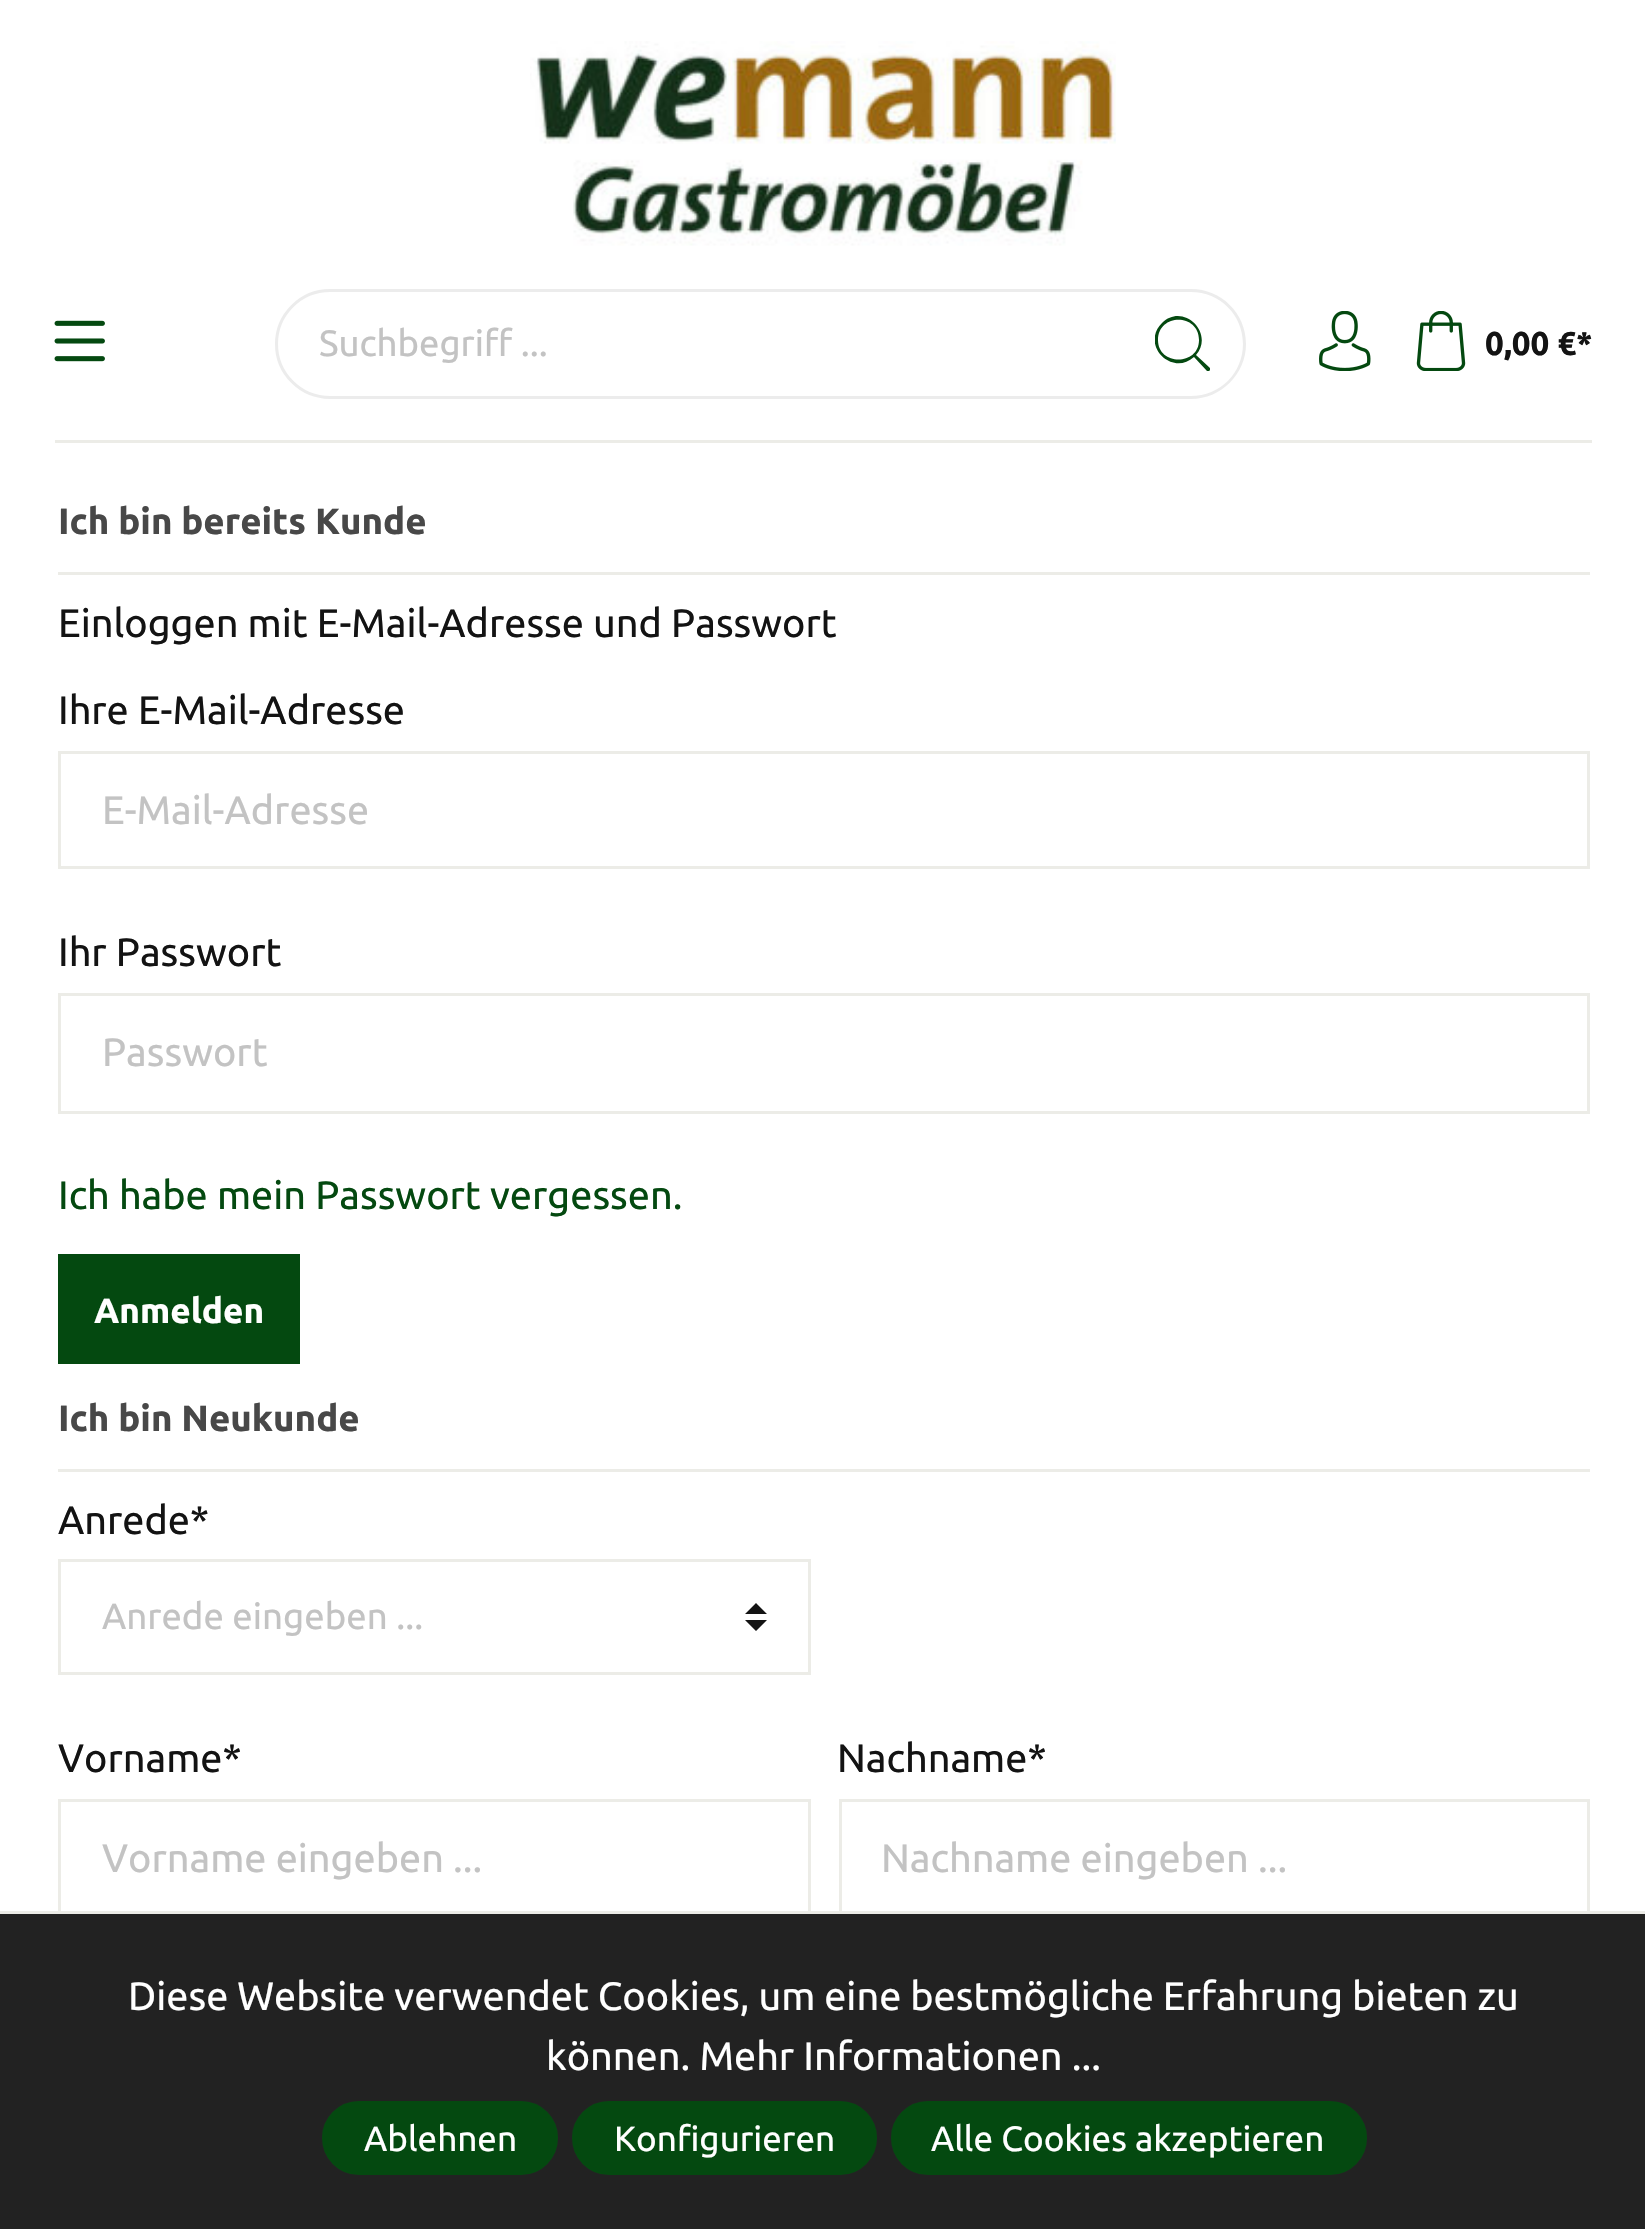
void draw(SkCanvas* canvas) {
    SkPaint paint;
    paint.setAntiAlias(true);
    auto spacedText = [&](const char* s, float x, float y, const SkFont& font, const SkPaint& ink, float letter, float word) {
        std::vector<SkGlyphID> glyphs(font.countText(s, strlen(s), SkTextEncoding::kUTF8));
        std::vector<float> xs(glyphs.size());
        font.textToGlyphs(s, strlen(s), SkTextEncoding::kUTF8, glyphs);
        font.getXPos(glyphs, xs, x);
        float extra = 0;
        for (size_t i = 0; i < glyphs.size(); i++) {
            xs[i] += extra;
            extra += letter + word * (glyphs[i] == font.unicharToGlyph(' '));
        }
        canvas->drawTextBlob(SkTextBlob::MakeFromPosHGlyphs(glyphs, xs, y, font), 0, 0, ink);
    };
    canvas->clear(0xFFFFFFFF);
    canvas->drawImageRect(SkImages::DeferredFromEncodedData(SkData::MakeFromFileName("img1.png")), SkRect::MakeXYWH(530, 41, 586, 205), SkSamplingOptions());
    canvas->drawImageRect(SkImages::DeferredFromEncodedData(SkData::MakeFromFileName("img2.png")), SkRect::MakeXYWH(54, 320, 51, 42), SkSamplingOptions());
    paint.setStyle(SkPaint::kStroke_Style);
    paint.setStrokeWidth(3);
    paint.setColor(0xFFECECEC);
    canvas->drawPath(SkPathBuilder().moveTo(330, 290.5f).lineTo(1123.5f, 290.5f).lineTo(1123.5f, 397.5f).lineTo(330, 397.5f).cubicTo(300.5f, 397.5f, 276.5f, 373.5f, 276.5f, 344).cubicTo(276.5f, 314.5f, 300.5f, 290.5f, 330, 290.5f).close().detach(), paint);
    SkFont font1(fontMgr->matchFamilyStyle("Ubuntu", SkFontStyle::Normal()), 36.6f);
    font1.setSubpixel(true);
    paint.setStyle(SkPaint::kFill_Style);
    paint.setColor(0xFFC3C3C3);
    canvas->drawString("Suchbegriff ...", 319, 356, font1, paint);
    paint.setColor(0xFFFFFFFF);
    canvas->drawPath(SkPathBuilder().moveTo(1122, 289).lineTo(1191, 289).cubicTo(1221.5f, 289, 1246, 313.5f, 1246, 344).cubicTo(1246, 374.5f, 1221.5f, 399, 1191, 399).lineTo(1122, 399).close().detach(), paint);
    paint.setColor(0xFFECECEC);
    canvas->drawPath(SkPathBuilder(SkPathFillType::kEvenOdd).moveTo(1122, 289).lineTo(1191, 289).cubicTo(1221, 289, 1246, 313, 1246, 344).cubicTo(1246, 374, 1221, 399, 1191, 399).lineTo(1122, 399).close().moveTo(1122, 292).lineTo(1191, 292).cubicTo(1220, 292, 1243, 315, 1243, 344).cubicTo(1243, 373, 1220, 396, 1191, 396).lineTo(1122, 396).close().detach(), paint);
    canvas->save();
    canvas->clipRect(SkRect::MakeXYWH(1155, 316, 55, 55));
    paint.setColor(0xFF044910);
    canvas->drawPath(SkPathBuilder().moveTo(1210, 368).lineTo(1196, 355).cubicTo(1215, 333, 1183, 302, 1162, 323).cubicTo(1140, 345, 1172, 377, 1194, 357).lineTo(1207, 371).cubicTo(1209, 372, 1211, 370, 1210, 368).close().moveTo(1158, 340).cubicTo(1158, 313, 1199, 313, 1199, 340).cubicTo(1199, 366, 1158, 366, 1158, 340).close().detach(), paint);
    canvas->restore();
    canvas->drawImageRect(SkImages::DeferredFromEncodedData(SkData::MakeFromFileName("img3.png")), SkRect::MakeXYWH(1319, 311, 52, 60), SkSamplingOptions());
    canvas->drawImageRect(SkImages::DeferredFromEncodedData(SkData::MakeFromFileName("img4.png")), SkRect::MakeXYWH(1416, 311, 50, 60), SkSamplingOptions());
    SkFont font2(fontMgr->matchFamilyStyle("Ubuntu", SkFontStyle::Bold()), 33);
    font2.setSubpixel(true);
    paint.setColor(0xFF131313);
    canvas->drawString("0,00 €*", 1485, 355, font2, paint);
    paint.setColor(0xFFECECE7);
    canvas->drawRect(SkRect::MakeXYWH(55, 440, 1537, 3), paint);
    canvas->drawRect(SkRect::MakeXYWH(58, 572, 1532, 3), paint);
    SkFont font3(fontMgr->matchFamilyStyle("Ubuntu", SkFontStyle::Bold()), 36.6f);
    font3.setSubpixel(true);
    paint.setColor(0xFF484848);
    canvas->drawString("Ich bin bereits Kunde", 58, 534, font3, paint);
    SkFont font4(fontMgr->matchFamilyStyle("Ubuntu", SkFontStyle::Normal()), 39.65f);
    font4.setSubpixel(true);
    paint.setColor(0xFF131313);
    canvas->drawString("Einloggen mit E-Mail-Adresse und Passwort", 58, 637, font4, paint);
    canvas->drawString("Ihre E-Mail-Adresse", 58, 724, font4, paint);
    paint.setStyle(SkPaint::kStroke_Style);
    paint.setColor(0xFFECECE7);
    canvas->drawRect(SkRect::MakeXYWH(59.5f, 752.5f, 1529, 115), paint);
    paint.setStyle(SkPaint::kFill_Style);
    paint.setColor(0xFFC3C3C3);
    canvas->drawString("E-Mail-Adresse", 102, 824, font4, paint);
    paint.setColor(0xFF131313);
    canvas->drawString("Ihr Passwort", 58, 966, font4, paint);
    paint.setStyle(SkPaint::kStroke_Style);
    paint.setColor(0xFFECECE7);
    canvas->drawRect(SkRect::MakeXYWH(59.5f, 994.5f, 1529, 118), paint);
    paint.setStyle(SkPaint::kFill_Style);
    paint.setColor(0xFFC3C3C3);
    canvas->drawString("Passwort", 102, 1066, font4, paint);
    paint.setColor(0xFF044910);
    canvas->drawString("Ich habe mein Passwort vergessen.", 58, 1209, font4, paint);
    canvas->drawRect(SkRect::MakeXYWH(58, 1254, 242, 110), paint);
    SkFont font5(fontMgr->matchFamilyStyle("Ubuntu", SkFontStyle::Bold()), 35.1f);
    font5.setSubpixel(true);
    paint.setColor(0xFFFFFFFF);
    canvas->drawString("Anmelden", 94, 1323, font5, paint);
    paint.setColor(0xFFECECE7);
    canvas->drawRect(SkRect::MakeXYWH(58, 1469, 1532, 3), paint);
    paint.setColor(0xFF484848);
    canvas->drawString("Ich bin Neukunde", 58, 1431, font3, paint);
    paint.setColor(0xFF131313);
    canvas->drawString("Anrede*", 58, 1534, font4, paint);
    canvas->drawPath(SkPathBuilder().moveTo(756, 1603).lineTo(745, 1614).lineTo(767, 1614).close().moveTo(756, 1631).lineTo(745, 1620).lineTo(767, 1620).close().detach(), paint);
    paint.setStyle(SkPaint::kStroke_Style);
    paint.setColor(0xFFECECE7);
    canvas->drawRect(SkRect::MakeXYWH(59.5f, 1560.5f, 750, 113), paint);
    paint.setStyle(SkPaint::kFill_Style);
    paint.setColor(0xFFC3C3C3);
    canvas->drawString("Anrede eingeben ...", 102, 1629, font1, paint);
    paint.setColor(0xFF131313);
    canvas->drawString("Vorname*", 58, 1772, font4, paint);
    paint.setStyle(SkPaint::kStroke_Style);
    paint.setColor(0xFFECECE7);
    canvas->drawRect(SkRect::MakeXYWH(59.5f, 1800.5f, 750, 118), paint);
    paint.setStyle(SkPaint::kFill_Style);
    paint.setColor(0xFFC3C3C3);
    canvas->drawString("Vorname eingeben ...", 102, 1872, font4, paint);
    paint.setColor(0xFF131313);
    canvas->drawString("Nachname*", 837, 1772, font4, paint);
    paint.setStyle(SkPaint::kStroke_Style);
    paint.setColor(0xFFECECE7);
    canvas->drawRect(SkRect::MakeXYWH(840.5f, 1800.5f, 748, 118), paint);
    paint.setStyle(SkPaint::kFill_Style);
    paint.setColor(0xFFC3C3C3);
    canvas->drawString("Nachname eingeben ...", 881, 1872, font4, paint);
    paint.setColor(0xFF222222);
    canvas->drawRect(SkRect::MakeXYWH(0, 1914, 1645, 315), paint);
    paint.setColor(0xFFECECE7);
    canvas->drawRect(SkRect::MakeXYWH(0, 1911, 1645, 3), paint);
    paint.setColor(0xFFFFFFFF);
    spacedText("Diese Website verwendet Cookies, um eine bestmögliche Erfahrung bieten zu", 128, 2010, font4, paint, 0, -0.25f);
    canvas->drawString("können. Mehr Informationen ...", 546, 2070, font4, paint);
    paint.setColor(0xFF044910);
    canvas->drawRoundRect(SkRect::MakeXYWH(323.5f, 2102.5f, 233, 71), 35.5f, 35.5f, paint);
    paint.setStyle(SkPaint::kStroke_Style);
    canvas->drawRoundRect(SkRect::MakeXYWH(323.5f, 2102.5f, 233, 71), 35.5f, 35.5f, paint);
    SkFont font6(fontMgr->matchFamilyStyle("Ubuntu", SkFontStyle::Normal()), 35.1f);
    font6.setSubpixel(true);
    paint.setStyle(SkPaint::kFill_Style);
    paint.setColor(0xFFFFFFFF);
    canvas->drawString("Ablehnen", 364, 2151, font6, paint);
    paint.setColor(0xFF044910);
    canvas->drawRoundRect(SkRect::MakeXYWH(573.5f, 2102.5f, 302, 71), 35.5f, 35.5f, paint);
    paint.setStyle(SkPaint::kStroke_Style);
    canvas->drawRoundRect(SkRect::MakeXYWH(573.5f, 2102.5f, 302, 71), 35.5f, 35.5f, paint);
    paint.setStyle(SkPaint::kFill_Style);
    paint.setColor(0xFFFFFFFF);
    canvas->drawString("Konfigurieren", 614, 2151, font6, paint);
    paint.setColor(0xFF044910);
    canvas->drawRoundRect(SkRect::MakeXYWH(892.5f, 2102.5f, 473, 71), 35.5f, 35.5f, paint);
    paint.setStyle(SkPaint::kStroke_Style);
    canvas->drawRoundRect(SkRect::MakeXYWH(892.5f, 2102.5f, 473, 71), 35.5f, 35.5f, paint);
    paint.setStyle(SkPaint::kFill_Style);
    paint.setColor(0xFFFFFFFF);
    canvas->drawString("Alle Cookies akzeptieren", 931, 2151, font6, paint);
}
